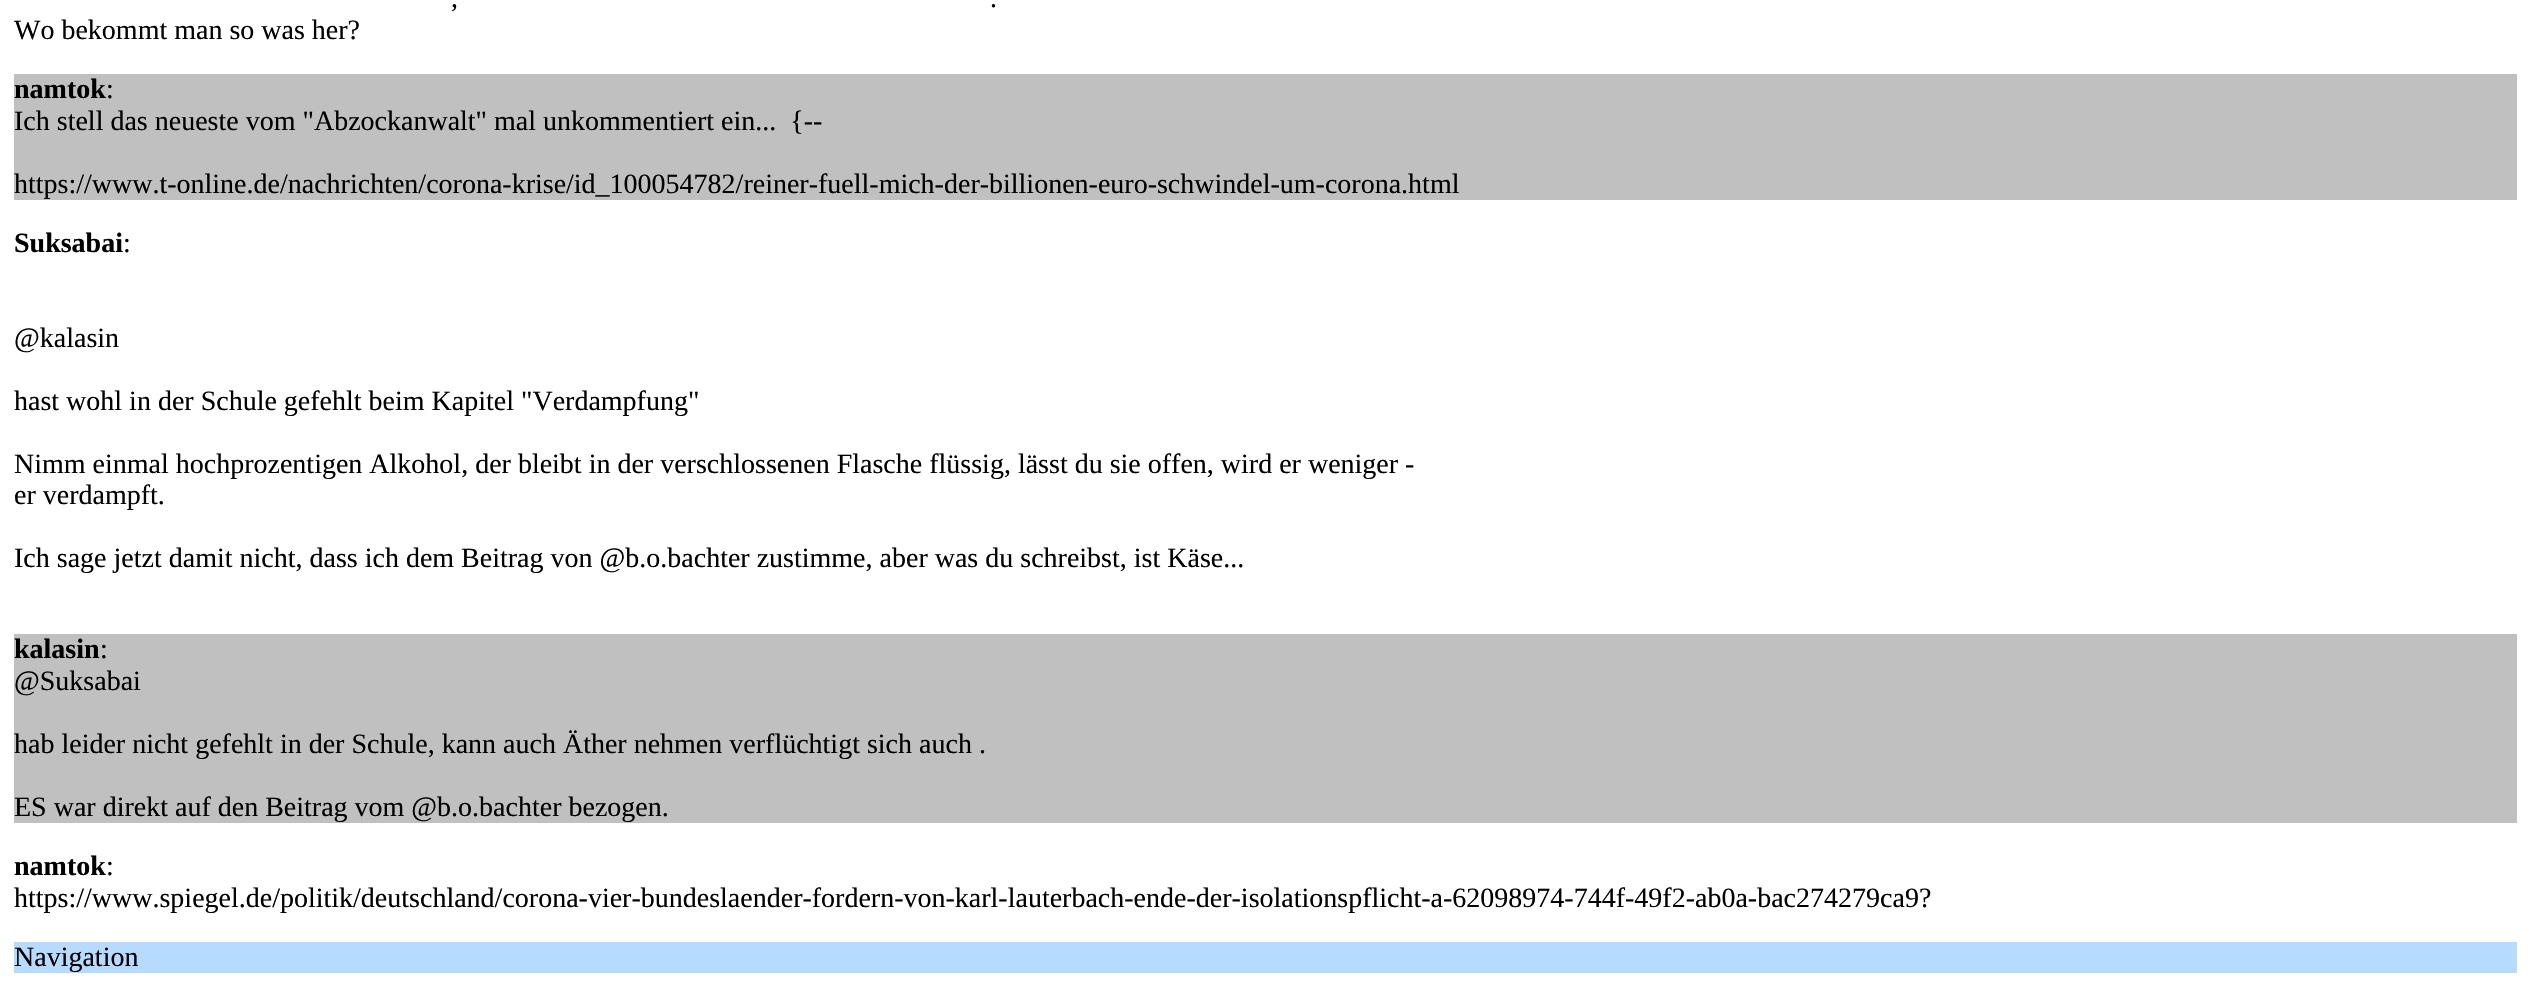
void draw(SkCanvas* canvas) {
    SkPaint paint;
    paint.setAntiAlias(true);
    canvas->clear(0xFFFFFFFF);
    SkFont font1(fontMgr->matchFamilyStyle("Liberation Serif", SkFontStyle::Normal()), 28);
    font1.setSubpixel(true);
    paint.setColor(0xFF000000);
    canvas->drawString(",", 451, 7, font1, paint);
    canvas->drawString(".", 990, 7, font1, paint);
    canvas->drawString("Wo bekommt man so was her?", 14, 39, font1, paint);
    paint.setColor(0xFFC0C0C0);
    canvas->drawRect(SkRect::MakeXYWH(14, 74, 2503, 126), paint);
    SkFont font2(fontMgr->matchFamilyStyle("Liberation Serif", SkFontStyle::Bold()), 28);
    font2.setSubpixel(true);
    paint.setColor(0xFF000000);
    canvas->drawString("namtok", 14, 98, font2, paint);
    canvas->drawString(":", 106, 98, font1, paint);
    canvas->drawString("Ich stell das neueste vom \"Abzockanwalt\" mal unkommentiert ein...  {--", 14, 130, font1, paint);
    canvas->drawString("https://www.t-online.de/nachrichten/corona-krise/id_100054782/reiner-fuell-mich-der-billionen-euro-schwindel-um-corona.html", 14, 193, font1, paint);
    canvas->drawString("Suksabai", 14, 252, font2, paint);
    canvas->drawString(":", 123, 252, font1, paint);
    canvas->drawString("@kalasin", 14, 347, font1, paint);
    canvas->drawString("hast wohl in der Schule gefehlt beim Kapitel \"Verdampfung\"", 14, 410, font1, paint);
    canvas->drawString("Nimm einmal hochprozentigen Alkohol, der bleibt in der verschlossenen Flasche flüssig, lässt du sie offen, wird er weniger -", 14, 473, font1, paint);
    canvas->drawString("er verdampft.", 14, 504, font1, paint);
    canvas->drawString("Ich sage jetzt damit nicht, dass ich dem Beitrag von @b.o.bachter zustimme, aber was du schreibst, ist Käse...", 14, 567, font1, paint);
    paint.setColor(0xFFC0C0C0);
    canvas->drawRect(SkRect::MakeXYWH(14, 634, 2503, 189), paint);
    paint.setColor(0xFF000000);
    canvas->drawString("kalasin", 14, 658, font2, paint);
    canvas->drawString(":", 100, 658, font1, paint);
    canvas->drawString("@Suksabai", 14, 690, font1, paint);
    canvas->drawString("hab leider nicht gefehlt in der Schule, kann auch Äther nehmen verflüchtigt sich auch .", 14, 753, font1, paint);
    canvas->drawString("ES war direkt auf den Beitrag vom @b.o.bachter bezogen.", 14, 816, font1, paint);
    canvas->drawString("namtok", 14, 875, font2, paint);
    canvas->drawString(":", 106, 875, font1, paint);
    canvas->drawString("https://www.spiegel.de/politik/deutschland/corona-vier-bundeslaender-fordern-von-karl-lauterbach-ende-der-isolationspflicht-a-62098974-744f-49f2-ab0a-bac274279ca9?", 14, 907, font1, paint);
    paint.setColor(0xFFB6DBFF);
    canvas->drawRect(SkRect::MakeXYWH(14, 942, 2503, 31), paint);
    paint.setColor(0xFF000000);
    canvas->drawString("Navigation", 14, 966, font1, paint);
}
